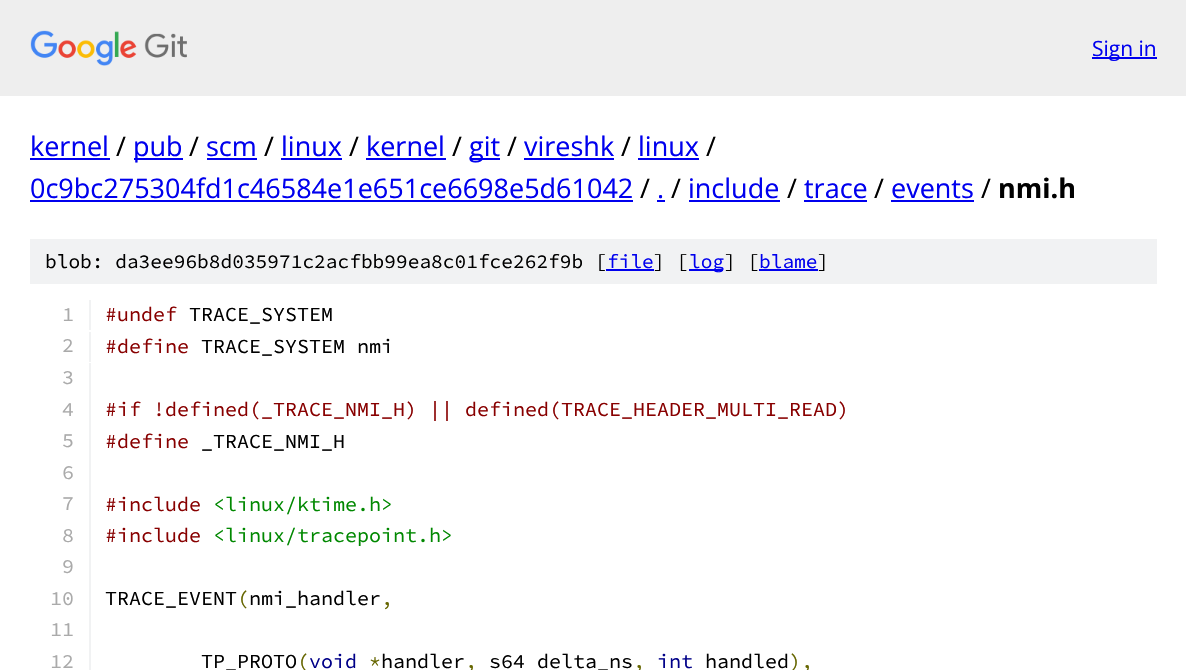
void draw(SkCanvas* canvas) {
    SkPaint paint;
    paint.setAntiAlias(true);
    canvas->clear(0xFFFFFFFF);
    paint.setColor(0xFFEEEEEE);
    canvas->drawRect(SkRect::MakeXYWH(0, 0, 1186, 96), paint);
    canvas->drawImageRect(SkImages::DeferredFromEncodedData(SkData::MakeFromFileName("img1.png")), SkRect::MakeXYWH(30, 30, 157, 36), SkSamplingOptions());
    paint.setColor(0xFF0000EE);
    canvas->drawRect(SkRect::MakeXYWH(1092, 57, 65, 2), paint);
    SkFont font1(fontMgr->matchFamilyStyle("Open Sans", SkFontStyle::Normal()), 21);
    font1.setSubpixel(true);
    canvas->drawString("Sign in", 1092, 56, font1, paint);
    SkFont font2(fontMgr->matchFamilyStyle("Open Sans", SkFontStyle::Normal()), 27);
    font2.setSubpixel(true);
    canvas->drawString("kernel", 30, 156, font2, paint);
    canvas->drawRect(SkRect::MakeXYWH(30, 158, 80, 2), paint);
    paint.setColor(0xFF000000);
    canvas->drawString("/", 116, 156, font2, paint);
    paint.setColor(0xFF0000EE);
    canvas->drawRect(SkRect::MakeXYWH(134, 158, 49, 2), paint);
    canvas->drawString("pub", 133, 156, font2, paint);
    paint.setColor(0xFF000000);
    canvas->drawString("/", 189, 156, font2, paint);
    paint.setColor(0xFF0000EE);
    canvas->drawString("scm", 206, 156, font2, paint);
    canvas->drawRect(SkRect::MakeXYWH(207, 158, 50, 2), paint);
    paint.setColor(0xFF000000);
    canvas->drawString("/", 264, 156, font2, paint);
    paint.setColor(0xFF0000EE);
    canvas->drawString("linux", 281, 156, font2, paint);
    canvas->drawRect(SkRect::MakeXYWH(281, 158, 61, 2), paint);
    paint.setColor(0xFF000000);
    canvas->drawString("/", 349, 156, font2, paint);
    paint.setColor(0xFF0000EE);
    canvas->drawString("kernel", 366, 156, font2, paint);
    canvas->drawRect(SkRect::MakeXYWH(366, 158, 80, 2), paint);
    paint.setColor(0xFF000000);
    canvas->drawString("/", 452, 156, font2, paint);
    paint.setColor(0xFF0000EE);
    canvas->drawRect(SkRect::MakeXYWH(470, 158, 30, 2), paint);
    canvas->drawString("git", 469, 156, font2, paint);
    paint.setColor(0xFF000000);
    canvas->drawString("/", 507, 156, font2, paint);
    paint.setColor(0xFF0000EE);
    canvas->drawString("vireshk", 524, 156, font2, paint);
    canvas->drawRect(SkRect::MakeXYWH(524, 158, 90, 2), paint);
    paint.setColor(0xFF000000);
    canvas->drawString("/", 621, 156, font2, paint);
    paint.setColor(0xFF0000EE);
    canvas->drawString("linux", 638, 156, font2, paint);
    canvas->drawRect(SkRect::MakeXYWH(638, 158, 61, 2), paint);
    paint.setColor(0xFF000000);
    canvas->drawString("/", 706, 156, font2, paint);
    paint.setColor(0xFF0000EE);
    canvas->drawString("0c9bc275304fd1c46584e1e651ce6698e5d61042", 30, 198, font2, paint);
    canvas->drawRect(SkRect::MakeXYWH(30, 200, 603, 2), paint);
    paint.setColor(0xFF000000);
    canvas->drawString("/", 640, 198, font2, paint);
    paint.setColor(0xFF0000EE);
    canvas->drawString(".", 657, 198, font2, paint);
    canvas->drawRect(SkRect::MakeXYWH(657, 200, 8, 2), paint);
    paint.setColor(0xFF000000);
    canvas->drawString("/", 671, 198, font2, paint);
    paint.setColor(0xFF0000EE);
    canvas->drawString("include", 688, 198, font2, paint);
    canvas->drawRect(SkRect::MakeXYWH(689, 200, 91, 2), paint);
    paint.setColor(0xFF000000);
    canvas->drawString("/", 787, 198, font2, paint);
    paint.setColor(0xFF0000EE);
    canvas->drawString("trace", 804, 198, font2, paint);
    canvas->drawRect(SkRect::MakeXYWH(804, 200, 63, 2), paint);
    paint.setColor(0xFF000000);
    canvas->drawString("/", 874, 198, font2, paint);
    paint.setColor(0xFF0000EE);
    canvas->drawString("events", 891, 198, font2, paint);
    canvas->drawRect(SkRect::MakeXYWH(891, 200, 83, 2), paint);
    paint.setColor(0xFF000000);
    canvas->drawString("/", 981, 198, font2, paint);
    SkFont font3(fontMgr->matchFamilyStyle("Open Sans", SkFontStyle::Bold()), 27);
    font3.setSubpixel(true);
    canvas->drawString("nmi.h", 998, 198, font3, paint);
    paint.setColor(0xFFF1F2F3);
    canvas->drawRect(SkRect::MakeXYWH(30, 239, 1127, 45), paint);
    SkFont font4(fontMgr->matchFamilyStyle("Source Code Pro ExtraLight", SkFontStyle(200, SkFontStyle::kNormal_Width, SkFontStyle::kUpright_Slant)), 19.5f);
    font4.setSubpixel(true);
    paint.setColor(0xFF000000);
    canvas->drawString("blob: da3ee96b8d035971c2acfbb99ea8c01fce262f9b [", 45, 268, font4, paint);
    paint.setColor(0xFF0000EE);
    canvas->drawString("file", 607, 268, font4, paint);
    canvas->drawRect(SkRect::MakeXYWH(606, 269, 48, 2), paint);
    paint.setColor(0xFF000000);
    canvas->drawString("] [", 653, 268, font4, paint);
    paint.setColor(0xFF0000EE);
    canvas->drawRect(SkRect::MakeXYWH(689, 269, 34, 2), paint);
    canvas->drawString("log", 689, 268, font4, paint);
    paint.setColor(0xFF000000);
    canvas->drawString("] [", 724, 268, font4, paint);
    paint.setColor(0xFF0000EE);
    canvas->drawString("blame", 759, 268, font4, paint);
    canvas->drawRect(SkRect::MakeXYWH(759, 269, 59, 2), paint);
    paint.setColor(0xFF000000);
    canvas->drawString("]", 817, 268, font4, paint);
    paint.setColor(0xFFF1F2F3);
    canvas->drawRect(SkRect::MakeXYWH(89, 300, 2, 30), paint);
    SkFont font5(fontMgr->matchFamilyStyle("Source Code Pro ExtraLight", SkFontStyle(200, SkFontStyle::kNormal_Width, SkFontStyle::kUpright_Slant)), 20);
    font5.setSubpixel(true);
    paint.setColor(0xFFAAAAAA);
    canvas->drawString("1", 62, 321, font5, paint);
    paint.setColor(0xFF880000);
    canvas->drawString("#undef", 105, 321, font5, paint);
    paint.setColor(0xFF000000);
    canvas->drawString("TRACE_SYSTEM", 189, 321, font5, paint);
    paint.setColor(0xFFF1F2F3);
    canvas->drawRect(SkRect::MakeXYWH(89, 332, 2, 30), paint);
    paint.setColor(0xFFAAAAAA);
    canvas->drawString("2", 62, 352, font5, paint);
    paint.setColor(0xFF880000);
    canvas->drawString("#define", 105, 353, font5, paint);
    paint.setColor(0xFF000000);
    canvas->drawString("TRACE_SYSTEM nmi", 201, 353, font5, paint);
    paint.setColor(0xFFF1F2F3);
    canvas->drawRect(SkRect::MakeXYWH(89, 363, 2, 307), paint);
    paint.setColor(0xFFAAAAAA);
    canvas->drawString("3", 62, 384, font5, paint);
    canvas->drawString("4", 62, 416, font5, paint);
    paint.setColor(0xFF880000);
    canvas->drawString("#if !defined(_TRACE_NMI_H) || defined(TRACE_HEADER_MULTI_READ)", 105, 416, font5, paint);
    paint.setColor(0xFFAAAAAA);
    canvas->drawString("5", 62, 447, font5, paint);
    paint.setColor(0xFF880000);
    canvas->drawString("#define", 105, 448, font5, paint);
    paint.setColor(0xFF000000);
    canvas->drawString("_TRACE_NMI_H", 201, 448, font5, paint);
    paint.setColor(0xFFAAAAAA);
    canvas->drawString("6", 62, 479, font5, paint);
    canvas->drawString("7", 62, 510, font5, paint);
    paint.setColor(0xFF880000);
    canvas->drawString("#include", 105, 511, font5, paint);
    paint.setColor(0xFF008800);
    canvas->drawString("<linux/ktime.h>", 213, 511, font5, paint);
    paint.setColor(0xFFAAAAAA);
    canvas->drawString("8", 62, 542, font5, paint);
    paint.setColor(0xFF880000);
    canvas->drawString("#include", 105, 542, font5, paint);
    paint.setColor(0xFF008800);
    canvas->drawString("<linux/tracepoint.h>", 213, 542, font5, paint);
    paint.setColor(0xFFAAAAAA);
    canvas->drawString("9", 62, 573, font5, paint);
    canvas->drawString("10", 50, 605, font5, paint);
    paint.setColor(0xFF000000);
    canvas->drawString("TRACE_EVENT nmi_handler", 105, 605, font5, paint);
    paint.setColor(0xFF666600);
    canvas->drawString("(", 237, 605, font5, paint);
    canvas->drawString(",", 381, 605, font5, paint);
    paint.setColor(0xFFAAAAAA);
    canvas->drawString("11", 50, 636, font5, paint);
    canvas->drawString("12", 50, 668, font5, paint);
    paint.setColor(0xFF000000);
    canvas->drawString("TP_PROTO", 201, 668, font5, paint);
    paint.setColor(0xFF666600);
    canvas->drawString("(", 297, 668, font5, paint);
    paint.setColor(0xFF000088);
    canvas->drawString("void", 309, 668, font5, paint);
    paint.setColor(0xFF666600);
    canvas->drawString("*", 369, 668, font5, paint);
    paint.setColor(0xFF000000);
    canvas->drawString("handler", 381, 668, font5, paint);
    canvas->drawString("s64 delta_ns", 489, 668, font5, paint);
    paint.setColor(0xFF000088);
    canvas->drawString("int", 657, 668, font5, paint);
    paint.setColor(0xFF000000);
    canvas->drawString("handled", 705, 668, font5, paint);
    paint.setColor(0xFF666600);
    canvas->drawString("),", 789, 668, font5, paint);
    canvas->drawString(",", 465, 668, font5, paint);
    canvas->drawString(",", 633, 668, font5, paint);
}
